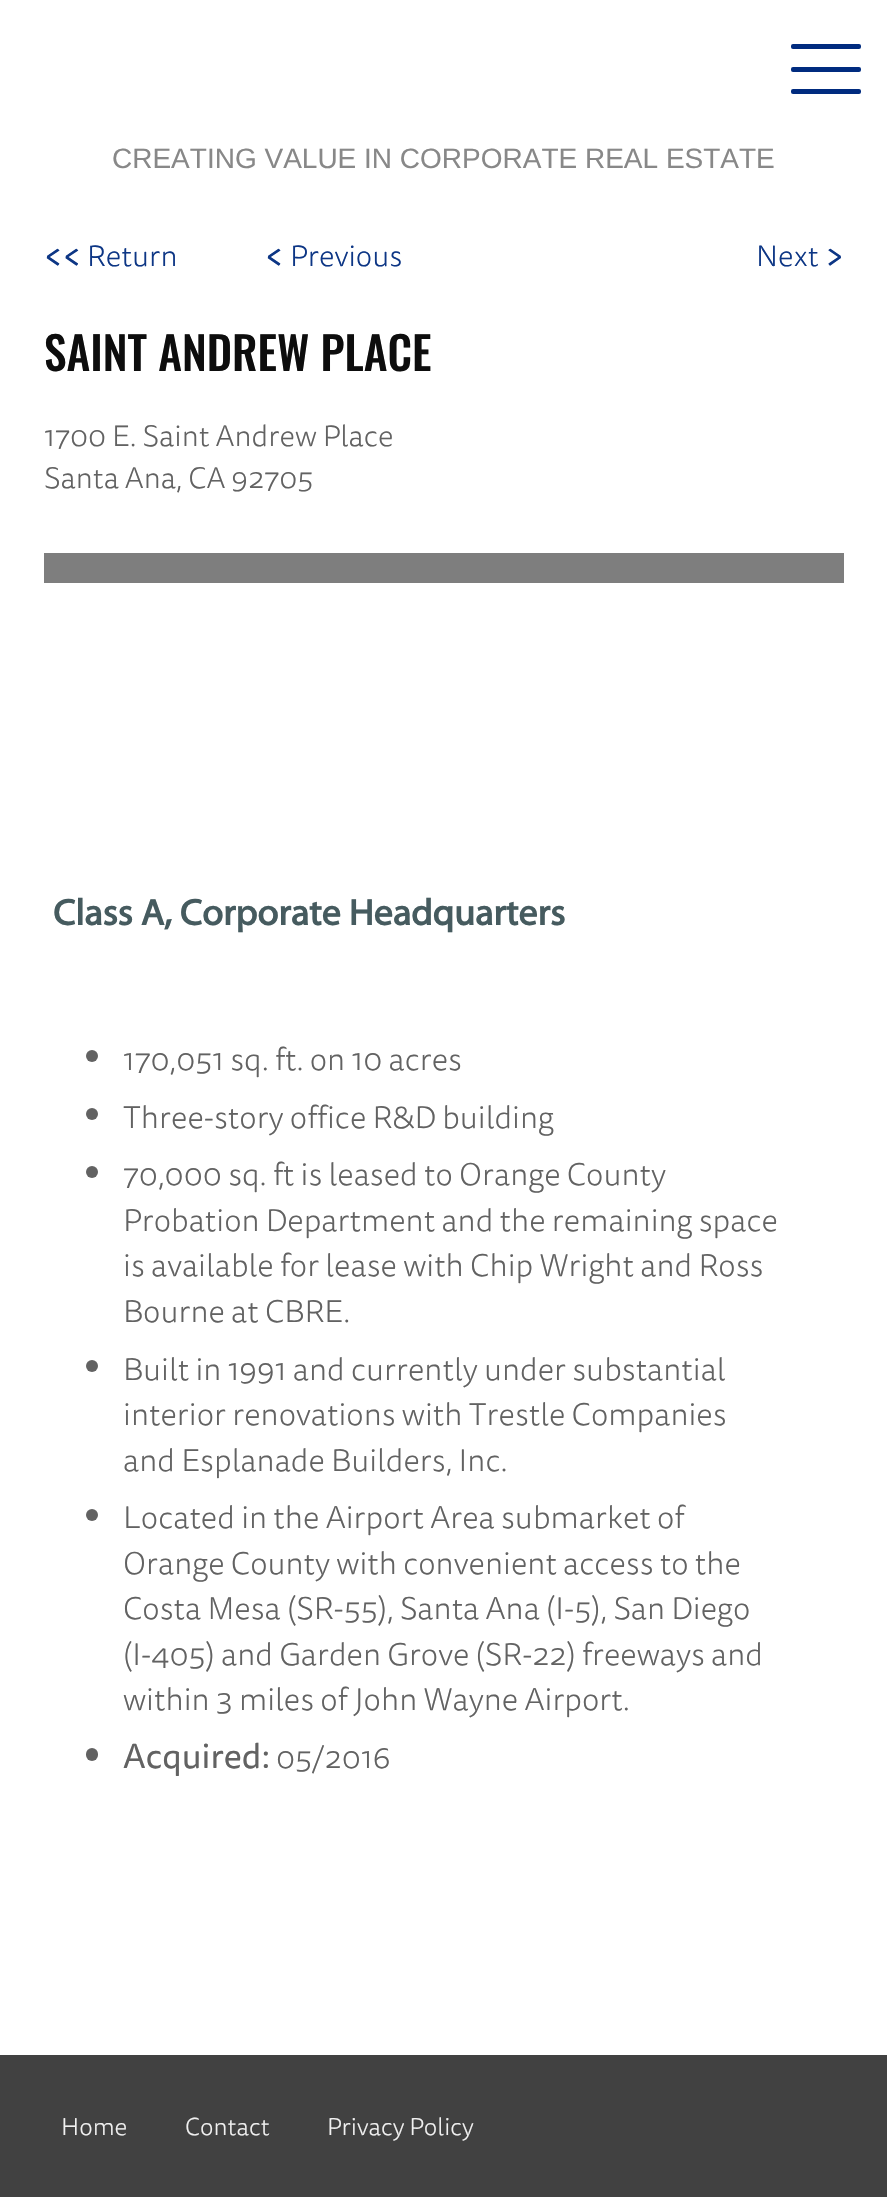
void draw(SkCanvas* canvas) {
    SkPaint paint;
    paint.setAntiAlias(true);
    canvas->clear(0xFFFFFFFF);
    paint.setColor(0xFF002B7F);
    canvas->drawRoundRect(SkRect::MakeXYWH(791, 44, 70, 5), 2, 2, paint);
    canvas->drawRoundRect(SkRect::MakeXYWH(791, 67, 70, 5), 2, 2, paint);
    canvas->drawRoundRect(SkRect::MakeXYWH(791, 89, 70, 5), 2, 2, paint);
    SkFont font1(fontMgr->matchFamilyStyle("Liberation Sans", SkFontStyle::Normal()), 28);
    font1.setSubpixel(true);
    paint.setColor(0xFF888888);
    canvas->drawString("CREATING VALUE IN CORPORATE REAL ESTATE", 112, 168, font1, paint);
    SkFont font2(fontMgr->matchFamilyStyle("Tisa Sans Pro", SkFontStyle::Normal()), 33);
    font2.setSubpixel(true);
    paint.setColor(0xFF0D3685);
    canvas->drawString("<<", 44, 266, font2, paint);
    SkFont font3(fontMgr->matchFamilyStyle("Tisa Sans Pro", SkFontStyle(300, SkFontStyle::kNormal_Width, SkFontStyle::kUpright_Slant)), 29.75f);
    font3.setSubpixel(true);
    canvas->drawString("Return", 87, 266, font3, paint);
    canvas->drawString("<", 265, 266, font2, paint);
    canvas->drawString("Previous", 290, 266, font3, paint);
    canvas->drawString("Next", 756, 266, font3, paint);
    canvas->drawString(">", 825, 266, font2, paint);
    SkFont font4(fontMgr->matchFamilyStyle("Oswald", SkFontStyle(500, SkFontStyle::kNormal_Width, SkFontStyle::kUpright_Slant)), 45.5f);
    font4.setSubpixel(true);
    paint.setColor(0xFF0D0D0D);
    canvas->drawString("SAINT ANDREW PLACE", 44, 371, font4, paint);
    paint.setColor(0xFF626262);
    canvas->drawString("1700 E. Saint Andrew Place", 44, 446, font3, paint);
    canvas->drawString("Santa Ana, CA 92705", 44, 488, font3, paint);
    paint.setColor(0xFF7E7E7E);
    canvas->drawRect(SkRect::MakeXYWH(44, 553, 800, 30), paint);
    SkFont font5(fontMgr->matchFamilyStyle("Myriad", SkFontStyle::Bold()), 36.75f);
    font5.setSubpixel(true);
    paint.setColor(0xFF465B5F);
    canvas->drawString("Class A, Corporate Headquarters", 53, 925, font5, paint);
    paint.setColor(0xFF626262);
    canvas->drawCircle(92, 1056, 6, paint);
    SkFont font6(fontMgr->matchFamilyStyle("Tisa Sans Pro", SkFontStyle(300, SkFontStyle::kNormal_Width, SkFontStyle::kUpright_Slant)), 31.5f);
    font6.setSubpixel(true);
    canvas->drawString("170,051 sq. ft. on 10 acres", 123, 1070, font6, paint);
    canvas->drawCircle(92, 1114, 6, paint);
    canvas->drawString("Three-story office R&D building", 123, 1128, font6, paint);
    canvas->drawCircle(92, 1172, 6, paint);
    canvas->drawString("70,000 sq. ft is leased to Orange County", 123, 1185, font6, paint);
    canvas->drawString("Probation Department and the remaining space", 123, 1231, font6, paint);
    canvas->drawString("is available for lease with Chip Wright and Ross", 123, 1276, font6, paint);
    canvas->drawString("Bourne at CBRE.", 123, 1322, font6, paint);
    canvas->drawCircle(92, 1366, 6, paint);
    canvas->drawString("Built in 1991 and currently under substantial", 123, 1380, font6, paint);
    canvas->drawString("interior renovations with Trestle Companies", 123, 1425, font6, paint);
    canvas->drawString("and Esplanade Builders, Inc.", 123, 1471, font6, paint);
    canvas->drawCircle(92, 1515, 6, paint);
    canvas->drawString("Located in the Airport Area submarket of", 123, 1528, font6, paint);
    canvas->drawString("Orange County with convenient access to the", 123, 1574, font6, paint);
    canvas->drawString("Costa Mesa (SR-55), Santa Ana (I-5), San Diego", 123, 1619, font6, paint);
    canvas->drawString("(I-405) and Garden Grove (SR-22) freeways and", 123, 1665, font6, paint);
    canvas->drawString("within 3 miles of John Wayne Airport.", 123, 1710, font6, paint);
    canvas->drawRoundRect(SkRect::MakeXYWH(86, 1748, 12, 13), 6, 6, paint);
    SkFont font7(fontMgr->matchFamilyStyle("Tisa Sans Pro", SkFontStyle::Normal()), 34.5f);
    font7.setSubpixel(true);
    canvas->drawString("Acquired:", 123, 1768, font7, paint);
    canvas->drawString("05/2016", 276, 1768, font6, paint);
    paint.setColor(0xFF414141);
    canvas->drawRect(SkRect::MakeXYWH(0, 2055, 887, 142), paint);
    SkFont font8(fontMgr->matchFamilyStyle("Tisa Sans Pro", SkFontStyle(300, SkFontStyle::kNormal_Width, SkFontStyle::kUpright_Slant)), 24.5f);
    font8.setSubpixel(true);
    paint.setColor(0xFFF1F1F1);
    canvas->drawString("Home", 61, 2135, font8, paint);
    canvas->drawString("Contact", 185, 2135, font8, paint);
    canvas->drawString("Privacy Policy", 327, 2135, font8, paint);
}
